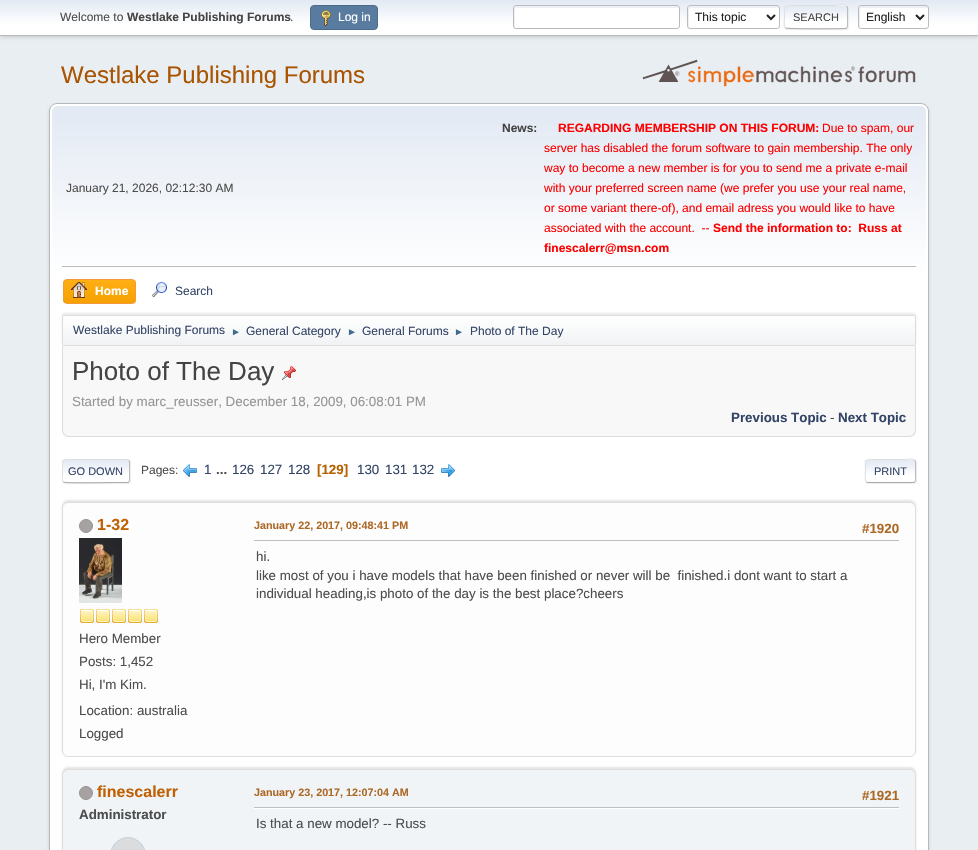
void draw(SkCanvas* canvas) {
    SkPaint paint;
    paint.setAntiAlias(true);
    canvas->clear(0xFFE9EEF2);
    paint.setColor(0x29000000);
    paint.setMaskFilter(SkMaskFilter::MakeBlur(kNormal_SkBlurStyle, 2));
    canvas->drawRect(SkRect::MakeXYWH(0, 1, 978, 36), paint);
    paint.setMaskFilter(nullptr);
    {
        const SkColor colors[] = {0xFFE2E9F3, 0xFFFFFFFF};
        const float stops[] = {0, 0.7f};
        const SkPoint ends[] = {{489, 0}, {489, 35}};
        paint.setShader(SkGradientShader::MakeLinear(ends, colors, stops, 2, SkTileMode::kClamp));
        paint.setAlpha(255);
    }
    canvas->drawRect(SkRect::MakeXYWH(0, 0, 978, 35), paint);
    paint.setShader(nullptr);
    paint.setColor(0xFFBBBBBB);
    canvas->drawRect(SkRect::MakeXYWH(0, 35, 978, 1), paint);
    SkFont font1(fontMgr->matchFamilyStyle("Liberation Sans", SkFontStyle::Normal()), 12);
    font1.setSubpixel(true);
    paint.setColor(0xFF4D4D4D);
    canvas->drawString("Welcome to", 60, 21, font1, paint);
    SkFont font2(fontMgr->matchFamilyStyle("Liberation Sans", SkFontStyle::Bold()), 12);
    font2.setSubpixel(true);
    paint.setColor(0xFF444444);
    canvas->drawString("Westlake Publishing Forums", 127, 21, font2, paint);
    paint.setColor(0xFF4D4D4D);
    canvas->drawString(".", 290, 21, font1, paint);
    paint.setColor(0xFF597B9F);
    canvas->drawRoundRect(SkRect::MakeXYWH(310.5f, 5.5f, 67, 24), 3.5f, 3.5f, paint);
    paint.setStyle(SkPaint::kStroke_Style);
    paint.setStrokeWidth(1);
    paint.setColor(0xFF4A6B8C);
    canvas->drawRoundRect(SkRect::MakeXYWH(310.5f, 5.5f, 67, 24), 3.5f, 3.5f, paint);
    canvas->drawImageRect(SkImages::DeferredFromEncodedData(SkData::MakeFromFileName("img1.png")), SkRect::MakeXYWH(321, 10, 10, 16), SkSamplingOptions());
    paint.setStyle(SkPaint::kFill_Style);
    paint.setColor(0xFFFFFFFF);
    canvas->drawString("Log in", 338, 21, font1, paint);
    canvas->drawRoundRect(SkRect::MakeXYWH(513, 5, 167, 24), 3, 3, paint);
    paint.setColor(0xFFECF1F8);
    canvas->drawPath(SkPathBuilder().moveTo(517, 8).lineTo(679, 8).lineTo(679, 7).lineTo(677, 6).lineTo(516, 6).cubicTo(515, 6, 514, 7, 514, 8).cubicTo(514, 11, 513, 27, 515, 28).lineTo(515, 10).cubicTo(515, 9, 516, 8, 517, 8).close().detach(), paint);
    paint.setStyle(SkPaint::kStroke_Style);
    paint.setColor(0xFFBBBBBB);
    canvas->drawRoundRect(SkRect::MakeXYWH(513.5f, 5.5f, 166, 23), 2.5f, 2.5f, paint);
    paint.setStyle(SkPaint::kFill_Style);
    paint.setColor(0xFFFFFFFF);
    canvas->drawRoundRect(SkRect::MakeXYWH(687, 5, 93, 24), 3, 3, paint);
    paint.setColor(0xFFECF1F8);
    canvas->drawPath(SkPathBuilder().moveTo(691, 8).lineTo(779, 8).cubicTo(779, 3, 767, 6, 762, 6).lineTo(704, 6).cubicTo(686, 6, 688, 2, 688, 17).cubicTo(688, 19, 687, 27, 689, 28).lineTo(689, 10).cubicTo(689, 9, 690, 8, 691, 8).close().detach(), paint);
    paint.setStyle(SkPaint::kStroke_Style);
    paint.setColor(0xFFBBBBBB);
    canvas->drawRoundRect(SkRect::MakeXYWH(687.5f, 5.5f, 92, 23), 2.5f, 2.5f, paint);
    paint.setStrokeWidth(2);
    paint.setColor(0xFF222222);
    canvas->drawPath(SkPathBuilder().moveTo(767, 15).lineTo(771, 19).lineTo(775, 15).detach(), paint);
    paint.setStyle(SkPaint::kFill_Style);
    canvas->drawString("This topic", 695, 21, font1, paint);
    paint.setColor(0x91DDDDDD);
    paint.setMaskFilter(SkMaskFilter::MakeBlur(kNormal_SkBlurStyle, 0.5f));
    canvas->drawRoundRect(SkRect::MakeXYWH(785, 6, 64, 24), 3, 3, paint);
    paint.setMaskFilter(nullptr);
    canvas->save();
    canvas->clipPath(SkPathBuilder().moveTo(787, 5).lineTo(845, 5).cubicTo(846.5f, 5, 848, 6.5f, 848, 8).lineTo(848, 26).cubicTo(848, 27.5f, 846.5f, 29, 845, 29).lineTo(787, 29).cubicTo(785.5f, 29, 784, 27.5f, 784, 26).lineTo(784, 8).cubicTo(784, 6.5f, 785.5f, 5, 787, 5).close().detach(), true);
    {
        const SkColor colors[] = {0xFFE2E9F3, 0xFFFFFFFF};
        const float stops[] = {0, 0.7f};
        const SkPoint ends[] = {{816, -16}, {816, 6}};
        paint.setShader(SkGradientShader::MakeLinear(ends, colors, stops, 2, SkTileMode::kClamp));
        paint.setAlpha(255);
    }
    canvas->drawRect(SkRect::MakeXYWH(784, 5, 64, 1), paint);
    {
        const SkColor colors[] = {0xFFE2E9F3, 0xFFFFFFFF};
        const float stops[] = {0, 0.7f};
        const SkPoint ends[] = {{816, 6}, {816, 28}};
        paint.setShader(SkGradientShader::MakeLinear(ends, colors, stops, 2, SkTileMode::kClamp));
        paint.setAlpha(255);
    }
    canvas->drawRect(SkRect::MakeXYWH(784, 6, 64, 22), paint);
    {
        const SkColor colors[] = {0xFFE2E9F3, 0xFFFFFFFF};
        const float stops[] = {0, 0.7f};
        const SkPoint ends[] = {{816, 28}, {816, 50}};
        paint.setShader(SkGradientShader::MakeLinear(ends, colors, stops, 2, SkTileMode::kClamp));
        paint.setAlpha(255);
    }
    canvas->drawRect(SkRect::MakeXYWH(784, 28, 64, 1), paint);
    canvas->restore();
    paint.setStyle(SkPaint::kStroke_Style);
    paint.setStrokeWidth(1);
    paint.setShader(nullptr);
    paint.setColor(0xFFBBBBBB);
    canvas->drawPath(SkPathBuilder().moveTo(847, 6).cubicTo(847, 6.5f, 847.5f, 7.5f, 847.5f, 8).lineTo(847.5f, 26).cubicTo(847.5f, 26.5f, 847, 27.5f, 847, 28).detach(), paint);
    paint.setColor(0xFFAAAAAA);
    canvas->drawPath(SkPathBuilder().moveTo(847, 28).lineTo(845, 28.5f).cubicTo(840, 29, 786.5f, 29, 785.5f, 28).lineTo(785, 28).detach(), paint);
    paint.setColor(0xFFDDDDDD);
    canvas->drawPath(SkPathBuilder().moveTo(785, 28).cubicTo(783.5f, 26, 784.5f, 19, 784.5f, 17).cubicTo(784.5f, 3.5f, 782.5f, 5.5f, 796.5f, 5.5f).lineTo(835.5f, 5.5f).cubicTo(839, 5.5f, 844, 3.5f, 847, 6).detach(), paint);
    SkFont font3(fontMgr->matchFamilyStyle("Liberation Sans", SkFontStyle::Normal()), 11);
    font3.setSubpixel(true);
    paint.setStyle(SkPaint::kFill_Style);
    paint.setColor(0xFF444444);
    canvas->drawString("SEARCH", 793, 21, font3, paint);
    paint.setColor(0xFFFFFFFF);
    canvas->drawRoundRect(SkRect::MakeXYWH(858, 5, 71, 24), 3, 3, paint);
    paint.setColor(0xFFECF1F8);
    canvas->drawPath(SkPathBuilder().moveTo(862, 8).lineTo(928, 8).lineTo(928, 7).cubicTo(926, 4, 915, 6, 915, 6).lineTo(872, 6).cubicTo(855, 6, 859, 4, 859, 20).cubicTo(859, 22, 858, 26, 860, 28).lineTo(860, 10).cubicTo(860, 9, 861, 8, 862, 8).close().detach(), paint);
    paint.setStyle(SkPaint::kStroke_Style);
    paint.setColor(0xFFBBBBBB);
    canvas->drawRoundRect(SkRect::MakeXYWH(858.5f, 5.5f, 70, 23), 2.5f, 2.5f, paint);
    paint.setStrokeWidth(2);
    paint.setColor(0xFF222222);
    canvas->drawPath(SkPathBuilder().moveTo(916, 15).lineTo(920, 19).lineTo(924, 15).detach(), paint);
    paint.setStyle(SkPaint::kFill_Style);
    canvas->drawString("English", 866, 21, font1, paint);
    SkFont font4(fontMgr->matchFamilyStyle("Liberation Sans", SkFontStyle::Normal()), 24);
    font4.setSubpixel(true);
    paint.setColor(0xFFA85400);
    canvas->drawString("Westlake Publishing Forums", 61, 83, font4, paint);
    canvas->drawImageRect(SkImages::DeferredFromEncodedData(SkData::MakeFromFileName("img2.png")), SkRect::MakeXYWH(642, 59, 274, 28), SkSamplingOptions());
    paint.setColor(0x24000000);
    paint.setMaskFilter(SkMaskFilter::MakeBlur(kNormal_SkBlurStyle, 1.5f));
    canvas->drawRoundRect(SkRect::MakeXYWH(49, 105, 880, 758), 8, 8, paint);
    paint.setMaskFilter(nullptr);
    paint.setColor(0xFFFFFFFF);
    canvas->drawRoundRect(SkRect::MakeXYWH(49.5f, 103.5f, 879, 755), 7.5f, 7.5f, paint);
    paint.setStyle(SkPaint::kStroke_Style);
    paint.setStrokeWidth(1);
    paint.setColor(0xFFB8B8B8);
    canvas->drawRoundRect(SkRect::MakeXYWH(49.5f, 103.5f, 879, 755), 7.5f, 7.5f, paint);
    paint.setStyle(SkPaint::kFill_Style);
    {
        const SkColor colors[] = {0xFFE2E9F3, 0xFFFFFFFF};
        const float stops[] = {0, 0.7f};
        const SkPoint ends[] = {{489, 106}, {489, 348}};
        paint.setShader(SkGradientShader::MakeLinear(ends, colors, stops, 2, SkTileMode::kClamp));
        paint.setAlpha(255);
    }
    canvas->drawPath(SkPathBuilder().moveTo(58, 106).lineTo(920, 106).cubicTo(923.5f, 106, 926, 108.5f, 926, 112).lineTo(926, 348).lineTo(52, 348).lineTo(52, 112).cubicTo(52, 108.5f, 54.5f, 106, 58, 106).close().detach(), paint);
    paint.setShader(nullptr);
    paint.setColor(0xFFBBBBBB);
    canvas->drawRect(SkRect::MakeXYWH(62, 266, 854, 1), paint);
    paint.setColor(0xFF4D4D4D);
    canvas->drawString("January 21, 2026, 02:12:30 AM", 66, 192, font1, paint);
    paint.setColor(0xFF444444);
    canvas->drawString("News:", 502, 132, font2, paint);
    paint.setColor(0xFFFF0000);
    canvas->drawString("REGARDING MEMBERSHIP ON THIS FORUM:", 558, 132, font2, paint);
    canvas->drawString("Due to spam, our", 822, 132, font1, paint);
    canvas->drawString("server has disabled the forum software to gain membership. The only", 544, 152, font1, paint);
    canvas->drawString("way to become a new member is for you to send me a private e-mail", 544, 172, font1, paint);
    canvas->drawString("with your preferred screen name (we prefer you use your real name,", 544, 192, font1, paint);
    canvas->drawString("or some variant there-of), and email adress you would like to have", 544, 212, font1, paint);
    canvas->drawString("associated with the account.  --", 544, 232, font1, paint);
    canvas->drawString("Send the information to:  Russ at", 713, 232, font2, paint);
    canvas->drawString("finescalerr@msn.com", 544, 252, font2, paint);
    canvas->save();
    canvas->clipPath(SkPathBuilder().moveTo(67, 279).lineTo(132, 279).cubicTo(134, 279, 136, 281, 136, 283).lineTo(136, 300).cubicTo(136, 302, 134, 304, 132, 304).lineTo(67, 304).cubicTo(65, 304, 63, 302, 63, 300).lineTo(63, 283).cubicTo(63, 281, 65, 279, 67, 279).close().detach(), true);
    {
        const SkColor colors[] = {0xFFFFAE14, 0xFFF5A100};
        const float stops[] = {0, 1};
        const SkPoint ends[] = {{100, 280}, {100, 303}};
        paint.setShader(SkGradientShader::MakeLinear(ends, colors, stops, 2, SkTileMode::kClamp));
        paint.setAlpha(255);
    }
    canvas->drawRect(SkRect::MakeXYWH(63, 280, 73, 23), paint);
    canvas->restore();
    paint.setStyle(SkPaint::kStroke_Style);
    paint.setShader(nullptr);
    paint.setColor(0xFFF49A3A);
    canvas->drawRoundRect(SkRect::MakeXYWH(63.5f, 279.5f, 72, 24), 3.5f, 3.5f, paint);
    canvas->drawImageRect(SkImages::DeferredFromEncodedData(SkData::MakeFromFileName("img3.png")), SkRect::MakeXYWH(71, 282, 16, 16), SkSamplingOptions());
    paint.setStyle(SkPaint::kFill_Style);
    paint.setColor(0xFFFFFFFF);
    canvas->drawString("Home", 95, 295, font2, paint);
    canvas->drawImageRect(SkImages::DeferredFromEncodedData(SkData::MakeFromFileName("img4.png")), SkRect::MakeXYWH(152, 282, 15, 15), SkSamplingOptions());
    paint.setColor(0xFF334466);
    canvas->drawString("Search", 175, 295, font1, paint);
    paint.setColor(0x14000000);
    paint.setMaskFilter(SkMaskFilter::MakeBlur(kNormal_SkBlurStyle, 1));
    canvas->drawRoundRect(SkRect::MakeXYWH(62, 313, 854, 31), 2, 2, paint);
    paint.setMaskFilter(nullptr);
    canvas->save();
    canvas->clipPath(SkPathBuilder().moveTo(64, 315).lineTo(914, 315).cubicTo(915, 315, 916, 316, 916, 317).lineTo(916, 344).cubicTo(916, 345, 915, 346, 914, 346).lineTo(64, 346).cubicTo(63, 346, 62, 345, 62, 344).lineTo(62, 317).cubicTo(62, 316, 63, 315, 64, 315).close().detach(), true);
    {
        const SkColor colors[] = {0xFFFFFFFF, 0xFFF1F3F5};
        const float stops[] = {0, 0.95f};
        const SkPoint ends[] = {{489, 316}, {489, 345}};
        paint.setShader(SkGradientShader::MakeLinear(ends, colors, stops, 2, SkTileMode::kClamp));
        paint.setAlpha(255);
    }
    canvas->drawRect(SkRect::MakeXYWH(62, 316, 854, 29), paint);
    canvas->restore();
    paint.setStyle(SkPaint::kStroke_Style);
    paint.setShader(nullptr);
    paint.setColor(0xFFDDDDDD);
    canvas->drawRoundRect(SkRect::MakeXYWH(62.5f, 315.5f, 853, 30), 1.5f, 1.5f, paint);
    paint.setStyle(SkPaint::kFill_Style);
    paint.setColor(0xFF334466);
    canvas->drawString("Westlake Publishing Forums", 73, 334, font1, paint);
    SkFont font5(fontMgr->matchFamilyStyle("Liberation Sans", SkFontStyle::Normal()), 10);
    font5.setSubpixel(true);
    paint.setColor(0xFF3F6B8C);
    canvas->drawString("►", 231, 335, font5, paint);
    paint.setColor(0xFF334466);
    canvas->drawString("General Category", 246, 335, font1, paint);
    paint.setColor(0xFF3F6B8C);
    canvas->drawString("►", 347, 335, font5, paint);
    paint.setColor(0xFF334466);
    canvas->drawString("General Forums", 362, 335, font1, paint);
    paint.setColor(0xFF3F6B8C);
    canvas->drawString("►", 454, 335, font5, paint);
    paint.setColor(0xFF334466);
    canvas->drawString("Photo of The Day", 470, 335, font1, paint);
    paint.setColor(0xFFF8F8F8);
    canvas->drawPath(SkPathBuilder().moveTo(62, 346).lineTo(916, 346).lineTo(916, 430).cubicTo(916, 434, 913, 437, 909, 437).lineTo(69, 437).cubicTo(65, 437, 62, 434, 62, 430).close().detach(), paint);
    paint.setColor(0xFFDDDDDD);
    canvas->drawPath(SkPathBuilder(SkPathFillType::kEvenOdd).moveTo(62, 346).lineTo(916, 346).lineTo(916, 430).cubicTo(916, 434, 913, 437, 909, 437).lineTo(69, 437).cubicTo(65, 437, 62, 434, 62, 430).close().moveTo(63, 346).lineTo(915, 346).lineTo(915, 430).cubicTo(915, 433, 912, 436, 909, 436).lineTo(69, 436).cubicTo(66, 436, 63, 433, 63, 430).close().detach(), paint);
    SkFont font6(fontMgr->matchFamilyStyle("Liberation Sans", SkFontStyle::Normal()), 26);
    font6.setSubpixel(true);
    paint.setColor(0xFF444444);
    canvas->drawString("Photo of The Day", 72, 380, font6, paint);
    canvas->drawImageRect(SkImages::DeferredFromEncodedData(SkData::MakeFromFileName("img5.png")), SkRect::MakeXYWH(282, 366, 14, 14), SkSamplingOptions());
    SkFont font7(fontMgr->matchFamilyStyle("Liberation Sans", SkFontStyle::Normal()), 13.35f);
    font7.setSubpixel(true);
    paint.setColor(0xFF959595);
    canvas->drawString("Started by marc_reusser, December 18, 2009, 06:08:01 PM", 72, 406, font7, paint);
    SkFont font8(fontMgr->matchFamilyStyle("Liberation Sans", SkFontStyle::Bold()), 13.35f);
    font8.setSubpixel(true);
    paint.setColor(0xFF334466);
    canvas->drawString("Previous Topic", 731, 422, font8, paint);
    paint.setColor(0xFF4D4D4D);
    canvas->drawString("-", 830, 422, font7, paint);
    paint.setColor(0xFF334466);
    canvas->drawString("Next Topic", 838, 422, font8, paint);
    paint.setColor(0x91DDDDDD);
    paint.setMaskFilter(SkMaskFilter::MakeBlur(kNormal_SkBlurStyle, 0.5f));
    canvas->drawRoundRect(SkRect::MakeXYWH(63, 460, 68, 24), 3, 3, paint);
    paint.setMaskFilter(nullptr);
    canvas->save();
    canvas->clipPath(SkPathBuilder().moveTo(65, 459).lineTo(127, 459).cubicTo(128.5f, 459, 130, 460.5f, 130, 462).lineTo(130, 480).cubicTo(130, 481.5f, 128.5f, 483, 127, 483).lineTo(65, 483).cubicTo(63.5f, 483, 62, 481.5f, 62, 480).lineTo(62, 462).cubicTo(62, 460.5f, 63.5f, 459, 65, 459).close().detach(), true);
    {
        const SkColor colors[] = {0xFFE2E9F3, 0xFFFFFFFF};
        const float stops[] = {0, 0.7f};
        const SkPoint ends[] = {{96, 460}, {96, 482}};
        paint.setShader(SkGradientShader::MakeLinear(ends, colors, stops, 2, SkTileMode::kClamp));
        paint.setAlpha(255);
    }
    canvas->drawRect(SkRect::MakeXYWH(62, 460, 68, 22), paint);
    {
        const SkColor colors[] = {0xFFE2E9F3, 0xFFFFFFFF};
        const float stops[] = {0, 0.7f};
        const SkPoint ends[] = {{96, 482}, {96, 504}};
        paint.setShader(SkGradientShader::MakeLinear(ends, colors, stops, 2, SkTileMode::kClamp));
        paint.setAlpha(255);
    }
    canvas->drawRect(SkRect::MakeXYWH(62, 482, 68, 1), paint);
    canvas->restore();
    paint.setStyle(SkPaint::kStroke_Style);
    paint.setShader(nullptr);
    paint.setColor(0xFFBBBBBB);
    canvas->drawPath(SkPathBuilder().moveTo(129, 460).cubicTo(129, 460.5f, 129.5f, 461.5f, 129.5f, 462).lineTo(129.5f, 480).cubicTo(129.5f, 480.5f, 129, 481.5f, 129, 482).detach(), paint);
    paint.setColor(0xFFAAAAAA);
    canvas->drawPath(SkPathBuilder().moveTo(129, 482).lineTo(127, 482.5f).lineTo(116.5f, 482.5f).cubicTo(110.5f, 482.5f, 65.5f, 483.5f, 63.5f, 482).lineTo(63, 482).detach(), paint);
    canvas->save();
    canvas->clipRect(SkRect::MakeXYWH(62, 452, 854, 38));
    paint.setColor(0xFFDDDDDD);
    canvas->drawPath(SkPathBuilder().moveTo(63, 482).cubicTo(61.5f, 480, 62.5f, 476, 62.5f, 474).cubicTo(62.5f, 457.5f, 59, 459.5f, 75.5f, 459.5f).lineTo(127, 459.5f).lineTo(129, 460).detach(), paint);
    canvas->restore();
    paint.setStyle(SkPaint::kFill_Style);
    paint.setColor(0xFF334466);
    canvas->drawString("GO DOWN", 68, 475, font3, paint);
    paint.setColor(0xFF4D4D4D);
    canvas->drawString("Pages:", 141, 474, font1, paint);
    canvas->drawImageRect(SkImages::DeferredFromEncodedData(SkData::MakeFromFileName("img6.png")), SkRect::MakeXYWH(183, 464, 14, 13), SkSamplingOptions());
    paint.setColor(0xFF334466);
    canvas->drawString("1", 204, 474, font7, paint);
    paint.setColor(0xFF4D4D4D);
    canvas->drawString("...", 216, 474, font8, paint);
    paint.setColor(0xFF334466);
    canvas->drawString("126", 232, 474, font7, paint);
    canvas->drawString("127", 260, 474, font7, paint);
    canvas->drawString("128", 288, 474, font7, paint);
    paint.setColor(0xFFB46100);
    canvas->drawString("[129]", 317, 474, font8, paint);
    paint.setColor(0xFF334466);
    canvas->drawString("130", 357, 474, font7, paint);
    canvas->drawString("131", 385, 474, font7, paint);
    canvas->drawString("132", 412, 474, font7, paint);
    canvas->drawImageRect(SkImages::DeferredFromEncodedData(SkData::MakeFromFileName("img7.png")), SkRect::MakeXYWH(441, 464, 14, 13), SkSamplingOptions());
    canvas->save();
    canvas->clipPath(SkPathBuilder(SkPathFillType::kEvenOdd).moveTo(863, 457).lineTo(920, 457).lineTo(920, 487).lineTo(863, 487).close().moveTo(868, 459).lineTo(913, 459).cubicTo(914.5f, 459, 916, 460.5f, 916, 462).lineTo(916, 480).cubicTo(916, 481.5f, 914.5f, 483, 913, 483).lineTo(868, 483).cubicTo(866.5f, 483, 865, 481.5f, 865, 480).lineTo(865, 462).cubicTo(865, 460.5f, 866.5f, 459, 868, 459).close().detach(), true);
    paint.setColor(0x91DDDDDD);
    paint.setMaskFilter(SkMaskFilter::MakeBlur(kNormal_SkBlurStyle, 0.5f));
    canvas->drawRoundRect(SkRect::MakeXYWH(866, 460, 51, 24), 3, 3, paint);
    paint.setMaskFilter(nullptr);
    canvas->restore();
    paint.setColor(0xFFFFFFFF);
    canvas->drawRoundRect(SkRect::MakeXYWH(865, 459, 51, 24), 3, 3, paint);
    canvas->save();
    canvas->clipPath(SkPathBuilder().moveTo(868, 459).lineTo(913, 459).cubicTo(914.5f, 459, 916, 460.5f, 916, 462).lineTo(916, 480).cubicTo(916, 481.5f, 914.5f, 483, 913, 483).lineTo(868, 483).cubicTo(866.5f, 483, 865, 481.5f, 865, 480).lineTo(865, 462).cubicTo(865, 460.5f, 866.5f, 459, 868, 459).close().detach(), true);
    {
        const SkColor colors[] = {0xFFE2E9F3, 0xFFFFFFFF};
        const float stops[] = {0, 0.7f};
        const SkPoint ends[] = {{891, 460}, {891, 482}};
        paint.setShader(SkGradientShader::MakeLinear(ends, colors, stops, 2, SkTileMode::kClamp));
        paint.setAlpha(255);
    }
    canvas->drawRect(SkRect::MakeXYWH(865, 460, 51, 22), paint);
    canvas->restore();
    paint.setStyle(SkPaint::kStroke_Style);
    paint.setShader(nullptr);
    paint.setColor(0xFFBBBBBB);
    canvas->drawPath(SkPathBuilder().moveTo(915, 460).cubicTo(915, 460.5f, 915.5f, 461.5f, 915.5f, 462).lineTo(915.5f, 480).cubicTo(915.5f, 480.5f, 915, 481.5f, 915, 482).detach(), paint);
    paint.setColor(0xFFAAAAAA);
    canvas->drawPath(SkPathBuilder().moveTo(915, 482).lineTo(913, 482.5f).lineTo(868, 482.5f).lineTo(866, 482).detach(), paint);
    paint.setColor(0xFFDDDDDD);
    canvas->drawPath(SkPathBuilder().moveTo(866, 482).cubicTo(864.5f, 480, 865.5f, 473, 865.5f, 471).cubicTo(865.5f, 458.5f, 863, 459.5f, 875.5f, 459.5f).lineTo(905.5f, 459.5f).cubicTo(908.5f, 459.5f, 912.5f, 458, 915, 460).detach(), paint);
    paint.setStyle(SkPaint::kFill_Style);
    paint.setColor(0xFF334466);
    canvas->drawString("PRINT", 874, 475, font3, paint);
    paint.setColor(0x1A000000);
    paint.setMaskFilter(SkMaskFilter::MakeBlur(kNormal_SkBlurStyle, 1));
    canvas->drawRoundRect(SkRect::MakeXYWH(62, 500, 854, 255), 6, 6, paint);
    paint.setMaskFilter(nullptr);
    paint.setColor(0xFFFDFDFD);
    canvas->drawRoundRect(SkRect::MakeXYWH(62.5f, 502.5f, 853, 254), 5.5f, 5.5f, paint);
    paint.setStyle(SkPaint::kStroke_Style);
    paint.setColor(0xFFDDDDDD);
    canvas->drawRoundRect(SkRect::MakeXYWH(62.5f, 502.5f, 853, 254), 5.5f, 5.5f, paint);
    paint.setStyle(SkPaint::kFill_Style);
    paint.setColor(0xFFA7A2A2);
    canvas->drawCircle(86, 526, 6.5f, paint);
    paint.setStyle(SkPaint::kStroke_Style);
    paint.setColor(0xFF969292);
    canvas->drawCircle(86, 526, 6.5f, paint);
    SkFont font9(fontMgr->matchFamilyStyle("Liberation Sans", SkFontStyle::Bold()), 16);
    font9.setSubpixel(true);
    paint.setStyle(SkPaint::kFill_Style);
    paint.setColor(0xFFC06002);
    canvas->drawString("1-32", 97, 530, font9, paint);
    canvas->drawImageRect(SkImages::DeferredFromEncodedData(SkData::MakeFromFileName("img8.png")), SkRect::MakeXYWH(79, 538, 43, 65), SkSamplingOptions());
    canvas->drawImageRect(SkImages::DeferredFromEncodedData(SkData::MakeFromFileName("img9.png")), SkRect::MakeXYWH(80, 609, 14, 14), SkSamplingOptions());
    canvas->drawImageRect(SkImages::DeferredFromEncodedData(SkData::MakeFromFileName("img9.png")), SkRect::MakeXYWH(96, 609, 14, 14), SkSamplingOptions());
    canvas->drawImageRect(SkImages::DeferredFromEncodedData(SkData::MakeFromFileName("img9.png")), SkRect::MakeXYWH(112, 609, 14, 14), SkSamplingOptions());
    canvas->drawImageRect(SkImages::DeferredFromEncodedData(SkData::MakeFromFileName("img9.png")), SkRect::MakeXYWH(128, 609, 14, 14), SkSamplingOptions());
    canvas->drawImageRect(SkImages::DeferredFromEncodedData(SkData::MakeFromFileName("img9.png")), SkRect::MakeXYWH(144, 609, 14, 14), SkSamplingOptions());
    paint.setColor(0xFF4D4D4D);
    canvas->drawString("Hero Member", 79, 643, font7, paint);
    canvas->drawString("Posts: 1,452", 79, 666, font7, paint);
    canvas->drawString("Hi, I'm Kim.", 79, 689, font7, paint);
    canvas->drawString("Location: australia", 79, 715, font7, paint);
    canvas->drawString("Logged", 79, 738, font7, paint);
    SkFont font10(fontMgr->matchFamilyStyle("Liberation Sans", SkFontStyle::Bold()), 10.75f);
    font10.setSubpixel(true);
    paint.setColor(0xFFAD6825);
    canvas->drawString("January 22, 2017, 09:48:41 PM", 254, 529, font10, paint);
    canvas->drawString("#1920", 862, 533, font8, paint);
    paint.setColor(0xFFBFBFBF);
    canvas->drawRect(SkRect::MakeXYWH(254, 540, 645, 1), paint);
    paint.setColor(0xFF4D4D4D);
    canvas->drawString("hi.", 256, 561, font7, paint);
    canvas->drawString("like most of you i have models that have been finished or never will be  finished.i dont want to start a", 256, 580, font7, paint);
    canvas->drawString("individual heading,is photo of the day is the best place?cheers", 256, 598, font7, paint);
    paint.setColor(0x1A000000);
    paint.setMaskFilter(SkMaskFilter::MakeBlur(kNormal_SkBlurStyle, 1));
    canvas->drawRoundRect(SkRect::MakeXYWH(62, 767, 854, 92), 6, 6, paint);
    paint.setMaskFilter(nullptr);
    paint.setColor(0xFFF0F4F7);
    canvas->drawRoundRect(SkRect::MakeXYWH(62.5f, 769.5f, 853, 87), 5.5f, 5.5f, paint);
    paint.setStyle(SkPaint::kStroke_Style);
    paint.setColor(0xFFDDDDDD);
    canvas->drawRoundRect(SkRect::MakeXYWH(62.5f, 769.5f, 853, 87), 5.5f, 5.5f, paint);
    paint.setStyle(SkPaint::kFill_Style);
    paint.setColor(0xFFA7A2A2);
    canvas->drawCircle(86, 793, 6.5f, paint);
    paint.setStyle(SkPaint::kStroke_Style);
    paint.setColor(0xFF969292);
    canvas->drawCircle(86, 793, 6.5f, paint);
    paint.setStyle(SkPaint::kFill_Style);
    paint.setColor(0xFFC06002);
    canvas->drawString("finescalerr", 97, 797, font9, paint);
    paint.setColor(0xFF4D4D4D);
    canvas->drawString("Administrator", 79, 819, font8, paint);
    canvas->drawImageRect(SkImages::DeferredFromEncodedData(SkData::MakeFromFileName("img10.png")), SkRect::MakeXYWH(110, 837, 36, 13), SkSamplingOptions());
    paint.setColor(0xFFAD6825);
    canvas->drawString("January 23, 2017, 12:07:04 AM", 254, 796, font10, paint);
    canvas->drawString("#1921", 862, 800, font8, paint);
    paint.setColor(0xFFFFFFFF);
    canvas->drawRect(SkRect::MakeXYWH(254, 808, 645, 1), paint);
    paint.setColor(0xFFBFBFBF);
    canvas->drawRect(SkRect::MakeXYWH(254, 807, 645, 1), paint);
    paint.setColor(0xFF4D4D4D);
    canvas->drawString("Is that a new model? -- Russ", 256, 828, font7, paint);
}
